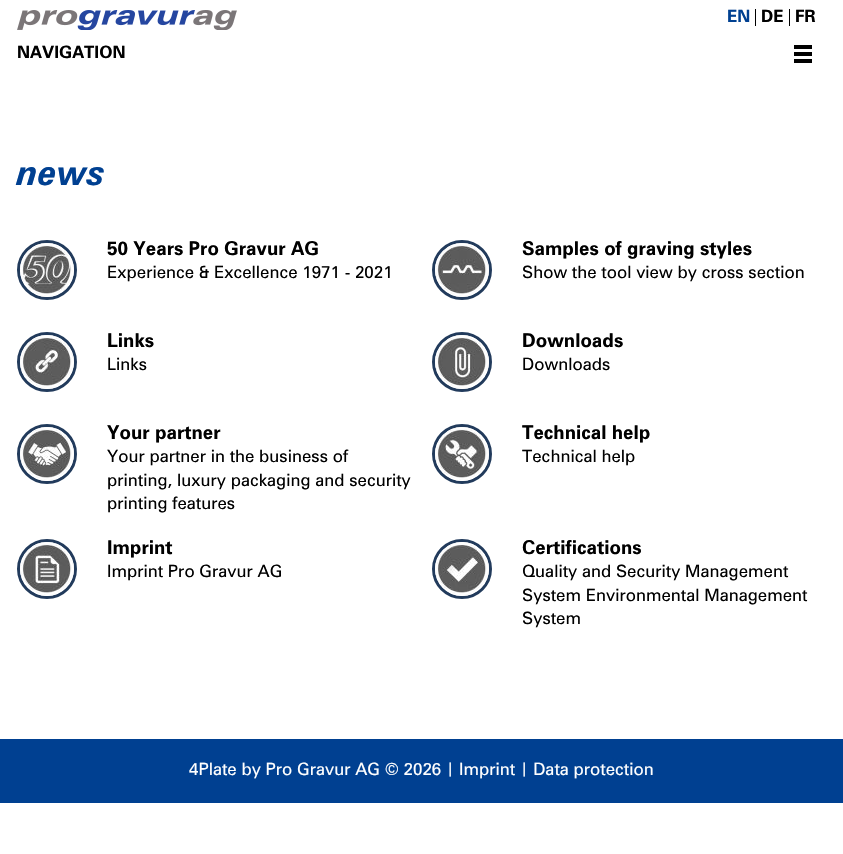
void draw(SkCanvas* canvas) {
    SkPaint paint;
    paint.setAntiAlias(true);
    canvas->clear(0xFFFFFFFF);
    canvas->drawImageRect(SkImages::DeferredFromEncodedData(SkData::MakeFromFileName("img1.png")), SkRect::MakeXYWH(17, 10, 220, 20), SkSamplingOptions());
    SkFont font1(fontMgr->matchFamilyStyle("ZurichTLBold", SkFontStyle::Normal()), 17);
    font1.setSubpixel(true);
    paint.setColor(0xFF004091);
    canvas->drawString("EN", 727, 22, font1, paint);
    paint.setColor(0xFF000000);
    canvas->drawString("DE", 761, 22, font1, paint);
    canvas->drawRect(SkRect::MakeXYWH(755, 9, 1, 17), paint);
    canvas->drawString("FR", 795, 22, font1, paint);
    canvas->drawRect(SkRect::MakeXYWH(789, 9, 1, 17), paint);
    canvas->drawString("NAVIGATION", 17, 58, font1, paint);
    canvas->drawRect(SkRect::MakeXYWH(794, 45, 18, 4), paint);
    canvas->drawRect(SkRect::MakeXYWH(794, 52, 18, 4), paint);
    canvas->drawRect(SkRect::MakeXYWH(794, 59, 18, 4), paint);
    SkFont font2(fontMgr->matchFamilyStyle("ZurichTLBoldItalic", SkFontStyle::Normal()), 35);
    font2.setSubpixel(true);
    paint.setColor(0xFF004091);
    canvas->drawString("news", 17, 185, font2, paint);
    paint.setStyle(SkPaint::kStroke_Style);
    paint.setStrokeWidth(3);
    paint.setColor(0xFF223B5C);
    canvas->drawCircle(47, 270, 28.5f, paint);
    canvas->drawImageRect(SkImages::DeferredFromEncodedData(SkData::MakeFromFileName("img2.png")), SkRect::MakeXYWH(20, 243, 54, 54), SkSamplingOptions());
    SkFont font3(fontMgr->matchFamilyStyle("ZurichTLBold", SkFontStyle::Normal()), 19);
    font3.setSubpixel(true);
    paint.setStyle(SkPaint::kFill_Style);
    paint.setColor(0xFF000000);
    canvas->drawString("50 Years Pro Gravur AG", 107, 255, font3, paint);
    SkFont font4(fontMgr->matchFamilyStyle("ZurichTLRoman", SkFontStyle::Normal()), 17);
    font4.setSubpixel(true);
    canvas->drawString("Experience & Excellence 1971 - 2021", 107, 278, font4, paint);
    paint.setStyle(SkPaint::kStroke_Style);
    paint.setColor(0xFF223B5C);
    canvas->drawCircle(462, 270, 28.5f, paint);
    canvas->drawImageRect(SkImages::DeferredFromEncodedData(SkData::MakeFromFileName("img3.png")), SkRect::MakeXYWH(435, 243, 54, 54), SkSamplingOptions());
    paint.setStyle(SkPaint::kFill_Style);
    paint.setColor(0xFF000000);
    canvas->drawString("Samples of graving styles", 522, 255, font3, paint);
    canvas->drawString("Show the tool view by cross section", 522, 278, font4, paint);
    paint.setStyle(SkPaint::kStroke_Style);
    paint.setColor(0xFF223B5C);
    canvas->drawCircle(47, 362, 28.5f, paint);
    canvas->drawImageRect(SkImages::DeferredFromEncodedData(SkData::MakeFromFileName("img4.png")), SkRect::MakeXYWH(20, 335, 54, 54), SkSamplingOptions());
    paint.setStyle(SkPaint::kFill_Style);
    paint.setColor(0xFF000000);
    canvas->drawString("Links", 107, 347, font3, paint);
    canvas->drawString("Links", 107, 370, font4, paint);
    paint.setStyle(SkPaint::kStroke_Style);
    paint.setColor(0xFF223B5C);
    canvas->drawCircle(462, 362, 28.5f, paint);
    canvas->drawImageRect(SkImages::DeferredFromEncodedData(SkData::MakeFromFileName("img5.png")), SkRect::MakeXYWH(435, 335, 54, 54), SkSamplingOptions());
    paint.setStyle(SkPaint::kFill_Style);
    paint.setColor(0xFF000000);
    canvas->drawString("Downloads", 522, 347, font3, paint);
    canvas->drawString("Downloads", 522, 370, font4, paint);
    paint.setStyle(SkPaint::kStroke_Style);
    paint.setColor(0xFF223B5C);
    canvas->drawCircle(47, 454, 28.5f, paint);
    canvas->drawImageRect(SkImages::DeferredFromEncodedData(SkData::MakeFromFileName("img6.png")), SkRect::MakeXYWH(20, 427, 54, 54), SkSamplingOptions());
    paint.setStyle(SkPaint::kFill_Style);
    paint.setColor(0xFF000000);
    canvas->drawString("Your partner", 107, 439, font3, paint);
    canvas->drawString("Your partner in the business of", 107, 462, font4, paint);
    canvas->drawString("printing, luxury packaging and security", 107, 486, font4, paint);
    canvas->drawString("printing features", 107, 509, font4, paint);
    paint.setStyle(SkPaint::kStroke_Style);
    paint.setColor(0xFF223B5C);
    canvas->drawCircle(462, 454, 28.5f, paint);
    canvas->drawImageRect(SkImages::DeferredFromEncodedData(SkData::MakeFromFileName("img7.png")), SkRect::MakeXYWH(435, 427, 54, 54), SkSamplingOptions());
    paint.setStyle(SkPaint::kFill_Style);
    paint.setColor(0xFF000000);
    canvas->drawString("Technical help", 522, 439, font3, paint);
    canvas->drawString("Technical help", 522, 462, font4, paint);
    paint.setStyle(SkPaint::kStroke_Style);
    paint.setColor(0xFF223B5C);
    canvas->drawCircle(47, 569, 28.5f, paint);
    canvas->drawImageRect(SkImages::DeferredFromEncodedData(SkData::MakeFromFileName("img8.png")), SkRect::MakeXYWH(20, 542, 54, 54), SkSamplingOptions());
    paint.setStyle(SkPaint::kFill_Style);
    paint.setColor(0xFF000000);
    canvas->drawString("Imprint", 107, 554, font3, paint);
    canvas->drawString("Imprint Pro Gravur AG", 107, 577, font4, paint);
    paint.setStyle(SkPaint::kStroke_Style);
    paint.setColor(0xFF223B5C);
    canvas->drawCircle(462, 569, 28.5f, paint);
    canvas->drawImageRect(SkImages::DeferredFromEncodedData(SkData::MakeFromFileName("img9.png")), SkRect::MakeXYWH(435, 542, 54, 54), SkSamplingOptions());
    paint.setStyle(SkPaint::kFill_Style);
    paint.setColor(0xFF000000);
    canvas->drawString("Certifications", 522, 554, font3, paint);
    canvas->drawString("Quality and Security Management", 522, 577, font4, paint);
    canvas->drawString("System Environmental Management", 522, 601, font4, paint);
    canvas->drawString("System", 522, 624, font4, paint);
    paint.setColor(0xFF004091);
    canvas->drawRect(SkRect::MakeXYWH(0, 739, 843, 64), paint);
    paint.setColor(0xFFFFFFFF);
    canvas->drawString("4Plate by Pro Gravur AG © 2026 | Imprint | Data protection", 189, 775, font4, paint);
}
